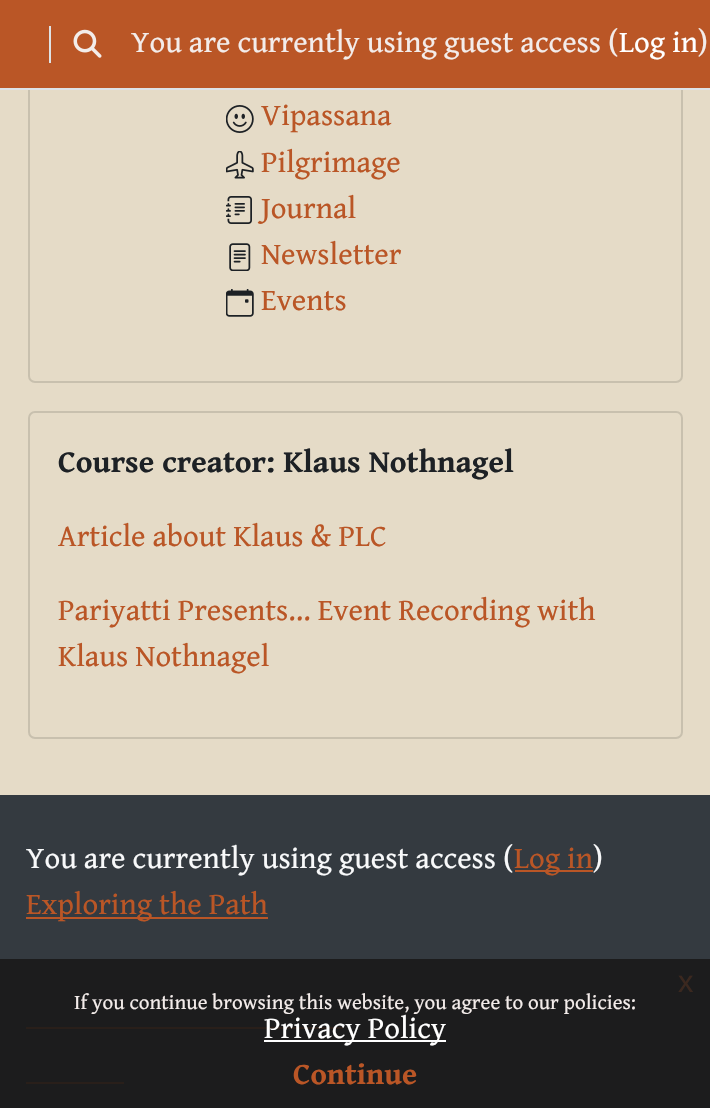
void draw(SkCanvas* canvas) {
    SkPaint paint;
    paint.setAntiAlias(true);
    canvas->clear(0xFFE5DBC7);
    paint.setStyle(SkPaint::kStroke_Style);
    paint.setStrokeWidth(2);
    paint.setColor(0xFFC8C0AE);
    canvas->drawRoundRect(SkRect::MakeXYWH(29, -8, 653, 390), 6, 6, paint);
    paint.setStyle(SkPaint::kFill_Style);
    paint.setColor(0xFFBA5626);
    canvas->drawRect(SkRect::MakeXYWH(0, 0, 710, 88), paint);
    paint.setColor(0xFFDEE2E6);
    canvas->drawRect(SkRect::MakeXYWH(0, 88, 710, 2), paint);
    canvas->drawRect(SkRect::MakeXYWH(49, 26, 2, 37), paint);
    canvas->drawImageRect(SkImages::DeferredFromEncodedData(SkData::MakeFromFileName("img1.png")), SkRect::MakeXYWH(73, 29, 29, 29), SkSamplingOptions());
    SkFont font1(fontMgr->matchFamilyStyle("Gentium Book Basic", SkFontStyle::Normal()), 30.75f);
    font1.setSubpixel(true);
    paint.setColor(0xFFF3ECEA);
    canvas->drawString("You are currently using guest access (", 131, 52, font1, paint);
    paint.setColor(0xFFFFFFFF);
    canvas->drawString("Log in", 619, 52, font1, paint);
    paint.setColor(0xFFF3ECEA);
    canvas->drawString(")", 698, 52, font1, paint);
    canvas->drawImageRect(SkImages::DeferredFromEncodedData(SkData::MakeFromFileName("img2.png")), SkRect::MakeXYWH(226, 105, 28, 28), SkSamplingOptions());
    paint.setColor(0xFFBA5626);
    canvas->drawString("Vipassana", 261, 125, font1, paint);
    canvas->drawImageRect(SkImages::DeferredFromEncodedData(SkData::MakeFromFileName("img3.png")), SkRect::MakeXYWH(226, 151, 28, 28), SkSamplingOptions());
    canvas->drawString("Pilgrimage", 261, 172, font1, paint);
    canvas->drawImageRect(SkImages::DeferredFromEncodedData(SkData::MakeFromFileName("img4.png")), SkRect::MakeXYWH(226, 196, 26, 28), SkSamplingOptions());
    canvas->drawString("Journal", 261, 218, font1, paint);
    canvas->drawImageRect(SkImages::DeferredFromEncodedData(SkData::MakeFromFileName("img5.png")), SkRect::MakeXYWH(229, 243, 22, 28), SkSamplingOptions());
    canvas->drawString("Newsletter", 261, 264, font1, paint);
    canvas->drawImageRect(SkImages::DeferredFromEncodedData(SkData::MakeFromFileName("img6.png")), SkRect::MakeXYWH(226, 289, 28, 28), SkSamplingOptions());
    canvas->drawString("Events", 261, 310, font1, paint);
    paint.setStyle(SkPaint::kStroke_Style);
    paint.setColor(0xFFC8C0AE);
    canvas->drawRoundRect(SkRect::MakeXYWH(29, 412, 653, 326), 6, 6, paint);
    SkFont font2(fontMgr->matchFamilyStyle("Gentium Book Basic", SkFontStyle::Bold()), 31.5f);
    font2.setSubpixel(true);
    paint.setStyle(SkPaint::kFill_Style);
    paint.setColor(0xFF1D2125);
    canvas->drawString("Course creator: Klaus Nothnagel", 58, 472, font2, paint);
    paint.setColor(0xFFBA5626);
    canvas->drawString("Article about Klaus & PLC", 58, 546, font1, paint);
    canvas->drawString("Pariyatti Presents... Event Recording with", 58, 620, font1, paint);
    canvas->drawString("Klaus Nothnagel", 58, 666, font1, paint);
    paint.setColor(0xFF343A40);
    canvas->drawRect(SkRect::MakeXYWH(0, 795, 710, 164), paint);
    paint.setColor(0xFF1C1C1D);
    canvas->drawRect(SkRect::MakeXYWH(0, 959, 710, 149), paint);
    paint.setColor(0xFFF8F9FA);
    canvas->drawString("You are currently using guest access (", 26, 868, font1, paint);
    paint.setColor(0xFFBA5626);
    canvas->drawRect(SkRect::MakeXYWH(515, 870, 78, 2), paint);
    canvas->drawString("Log in", 514, 868, font1, paint);
    paint.setColor(0xFFF8F9FA);
    canvas->drawString(")", 593, 868, font1, paint);
    paint.setColor(0xFFBA5626);
    canvas->drawRect(SkRect::MakeXYWH(26, 917, 242, 2), paint);
    canvas->drawString("Exploring the Path", 26, 914, font1, paint);
    paint.setColor(0xFF291F1A);
    canvas->drawRect(SkRect::MakeXYWH(26, 1027, 317, 2), paint);
    canvas->drawRect(SkRect::MakeXYWH(26, 1082, 98, 2), paint);
    SkFont font3(fontMgr->matchFamilyStyle("Liberation Sans", SkFontStyle::Normal()), 30.75f);
    font3.setSubpixel(true);
    paint.setColor(0xFF3B281F);
    canvas->drawString("x", 678, 992, font3, paint);
    SkFont font4(fontMgr->matchFamilyStyle("Gentium Book Basic", SkFontStyle::Normal()), 21);
    font4.setSubpixel(true);
    paint.setColor(0xFFF3ECEA);
    canvas->drawString("If you continue browsing this website, you agree to our policies:", 74, 1009, font4, paint);
    paint.setColor(0xFFFFFFFF);
    canvas->drawRect(SkRect::MakeXYWH(264, 1040, 182, 2), paint);
    canvas->drawString("Privacy Policy", 264, 1038, font1, paint);
    SkFont font5(fontMgr->matchFamilyStyle("Gentium Book Basic", SkFontStyle::Bold()), 30.75f);
    font5.setSubpixel(true);
    paint.setColor(0xFFBA5626);
    canvas->drawString("Continue", 293, 1084, font5, paint);
}
